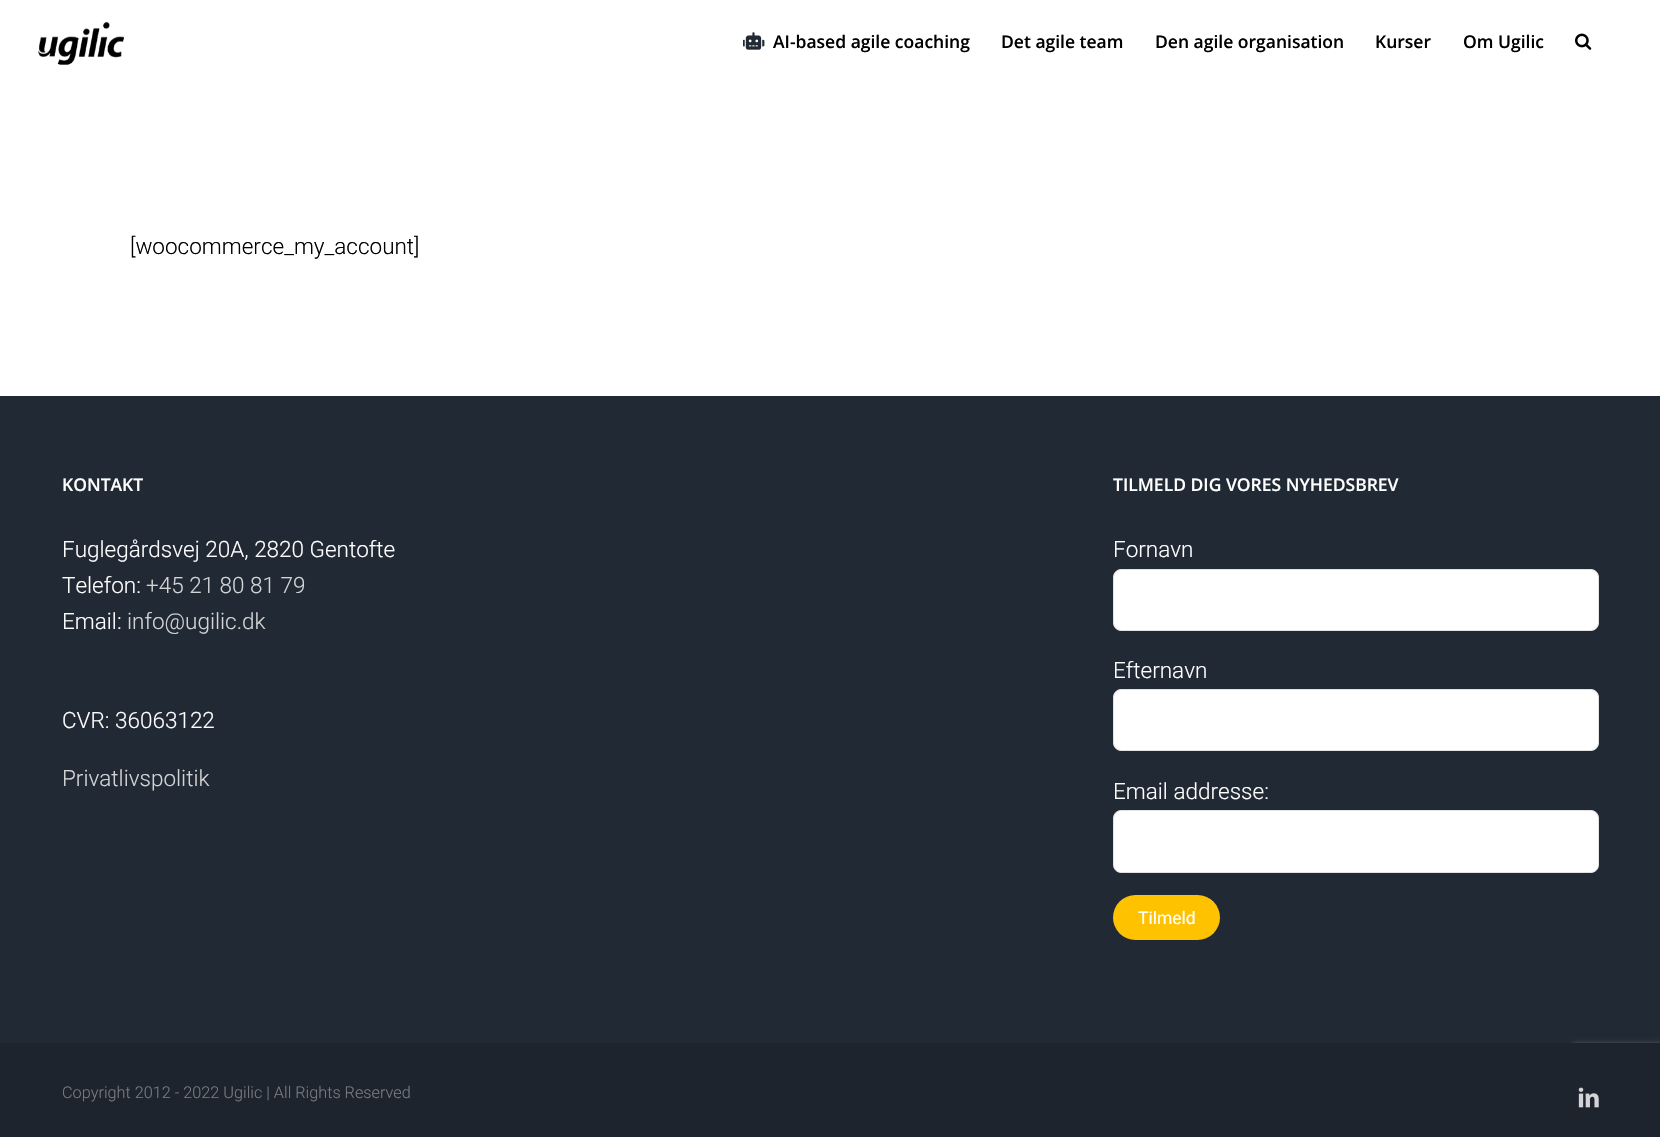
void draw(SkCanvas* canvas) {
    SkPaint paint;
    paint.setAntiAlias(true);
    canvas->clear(0xFFFFFFFF);
    canvas->drawImageRect(SkImages::DeferredFromEncodedData(SkData::MakeFromFileName("img1.png")), SkRect::MakeXYWH(38, 22, 86, 43), SkSamplingOptions());
    canvas->drawImageRect(SkImages::DeferredFromEncodedData(SkData::MakeFromFileName("img2.png")), SkRect::MakeXYWH(743, 32, 22, 18), SkSamplingOptions());
    SkFont font1(fontMgr->matchFamilyStyle("Open Sans", SkFontStyle(600, SkFontStyle::kNormal_Width, SkFontStyle::kUpright_Slant)), 17.5f);
    font1.setSubpixel(true);
    paint.setColor(0xFF000000);
    canvas->drawString("AI-based agile coaching", 773, 48, font1, paint);
    canvas->drawString("Det agile team", 1001, 48, font1, paint);
    canvas->drawString("Den agile organisation", 1155, 48, font1, paint);
    canvas->drawString("Kurser", 1375, 48, font1, paint);
    canvas->drawString("Om Ugilic", 1463, 48, font1, paint);
    canvas->drawImageRect(SkImages::DeferredFromEncodedData(SkData::MakeFromFileName("img3.png")), SkRect::MakeXYWH(1575, 33, 17, 17), SkSamplingOptions());
    SkFont font2(fontMgr->matchFamilyStyle("Roboto", SkFontStyle(300, SkFontStyle::kNormal_Width, SkFontStyle::kUpright_Slant)), 22.5f);
    font2.setSubpixel(true);
    canvas->drawString("[woocommerce_my_account]", 130, 254, font2, paint);
    paint.setColor(0xFF212934);
    canvas->drawRect(SkRect::MakeXYWH(0, 396, 1660, 647), paint);
    paint.setColor(0xFFFFFFFF);
    canvas->drawString("KONTAKT", 62, 491, font1, paint);
    canvas->drawString("Fuglegårdsvej 20A, 2820 Gentofte", 62, 557, font2, paint);
    canvas->drawString("Telefon:", 62, 593, font2, paint);
    paint.setColor(0xFFD3D4D6);
    canvas->drawString("+45 21 80 81 79", 146, 593, font2, paint);
    paint.setColor(0xFFFFFFFF);
    canvas->drawString("Email:", 62, 629, font2, paint);
    paint.setColor(0xFFD3D4D6);
    canvas->drawString("info@ugilic.dk", 127, 629, font2, paint);
    paint.setColor(0xFFFFFFFF);
    canvas->drawString("CVR: 36063122", 62, 728, font2, paint);
    paint.setColor(0xFFD3D4D6);
    canvas->drawString("Privatlivspolitik", 62, 786, font2, paint);
    paint.setColor(0xFFFFFFFF);
    canvas->drawString("TILMELD DIG VORES NYHEDSBREV", 1113, 491, font1, paint);
    canvas->drawString("Fornavn", 1113, 557, font2, paint);
    canvas->drawRoundRect(SkRect::MakeXYWH(1113.5f, 569.5f, 485, 61), 7.5f, 7.5f, paint);
    paint.setStyle(SkPaint::kStroke_Style);
    paint.setStrokeWidth(1);
    paint.setColor(0xFFE2E2E2);
    canvas->drawRoundRect(SkRect::MakeXYWH(1113.5f, 569.5f, 485, 61), 7.5f, 7.5f, paint);
    paint.setStyle(SkPaint::kFill_Style);
    paint.setColor(0xFFFFFFFF);
    canvas->drawString("Efternavn", 1113, 678, font2, paint);
    canvas->drawRoundRect(SkRect::MakeXYWH(1113.5f, 689.5f, 485, 61), 7.5f, 7.5f, paint);
    paint.setStyle(SkPaint::kStroke_Style);
    paint.setColor(0xFFE2E2E2);
    canvas->drawRoundRect(SkRect::MakeXYWH(1113.5f, 689.5f, 485, 61), 7.5f, 7.5f, paint);
    paint.setStyle(SkPaint::kFill_Style);
    paint.setColor(0xFFFFFFFF);
    canvas->drawString("Email addresse:", 1113, 799, font2, paint);
    canvas->drawRoundRect(SkRect::MakeXYWH(1113.5f, 810.5f, 485, 62), 7.5f, 7.5f, paint);
    paint.setStyle(SkPaint::kStroke_Style);
    paint.setColor(0xFFE2E2E2);
    canvas->drawRoundRect(SkRect::MakeXYWH(1113.5f, 810.5f, 485, 62), 7.5f, 7.5f, paint);
    paint.setStyle(SkPaint::kFill_Style);
    paint.setColor(0xFFFFC200);
    canvas->drawRoundRect(SkRect::MakeXYWH(1113, 895, 107, 45), 22.5f, 22.5f, paint);
    SkFont font3(fontMgr->matchFamilyStyle("Roboto", SkFontStyle::Normal()), 17.5f);
    font3.setSubpixel(true);
    paint.setColor(0xFFFFFFFF);
    canvas->drawString("Tilmeld", 1138, 924, font3, paint);
    paint.setColor(0xFF808080);
    paint.setMaskFilter(SkMaskFilter::MakeBlur(kNormal_SkBlurStyle, 3));
    canvas->drawRoundRect(SkRect::MakeXYWH(1573, 1045, 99, 75), 2.5f, 2.5f, paint);
    paint.setMaskFilter(nullptr);
    paint.setColor(0xFF1D242D);
    canvas->drawRect(SkRect::MakeXYWH(0, 1043, 1660, 94), paint);
    SkFont font4(fontMgr->matchFamilyStyle("Roboto", SkFontStyle(300, SkFontStyle::kNormal_Width, SkFontStyle::kUpright_Slant)), 16.25f);
    font4.setSubpixel(true);
    paint.setColor(0xFF777C81);
    canvas->drawString("Copyright 2012 - 2022 Ugilic | All Rights Reserved", 62, 1098, font4, paint);
    canvas->drawImageRect(SkImages::DeferredFromEncodedData(SkData::MakeFromFileName("img4.png")), SkRect::MakeXYWH(1578, 1087, 21, 21), SkSamplingOptions());
}
